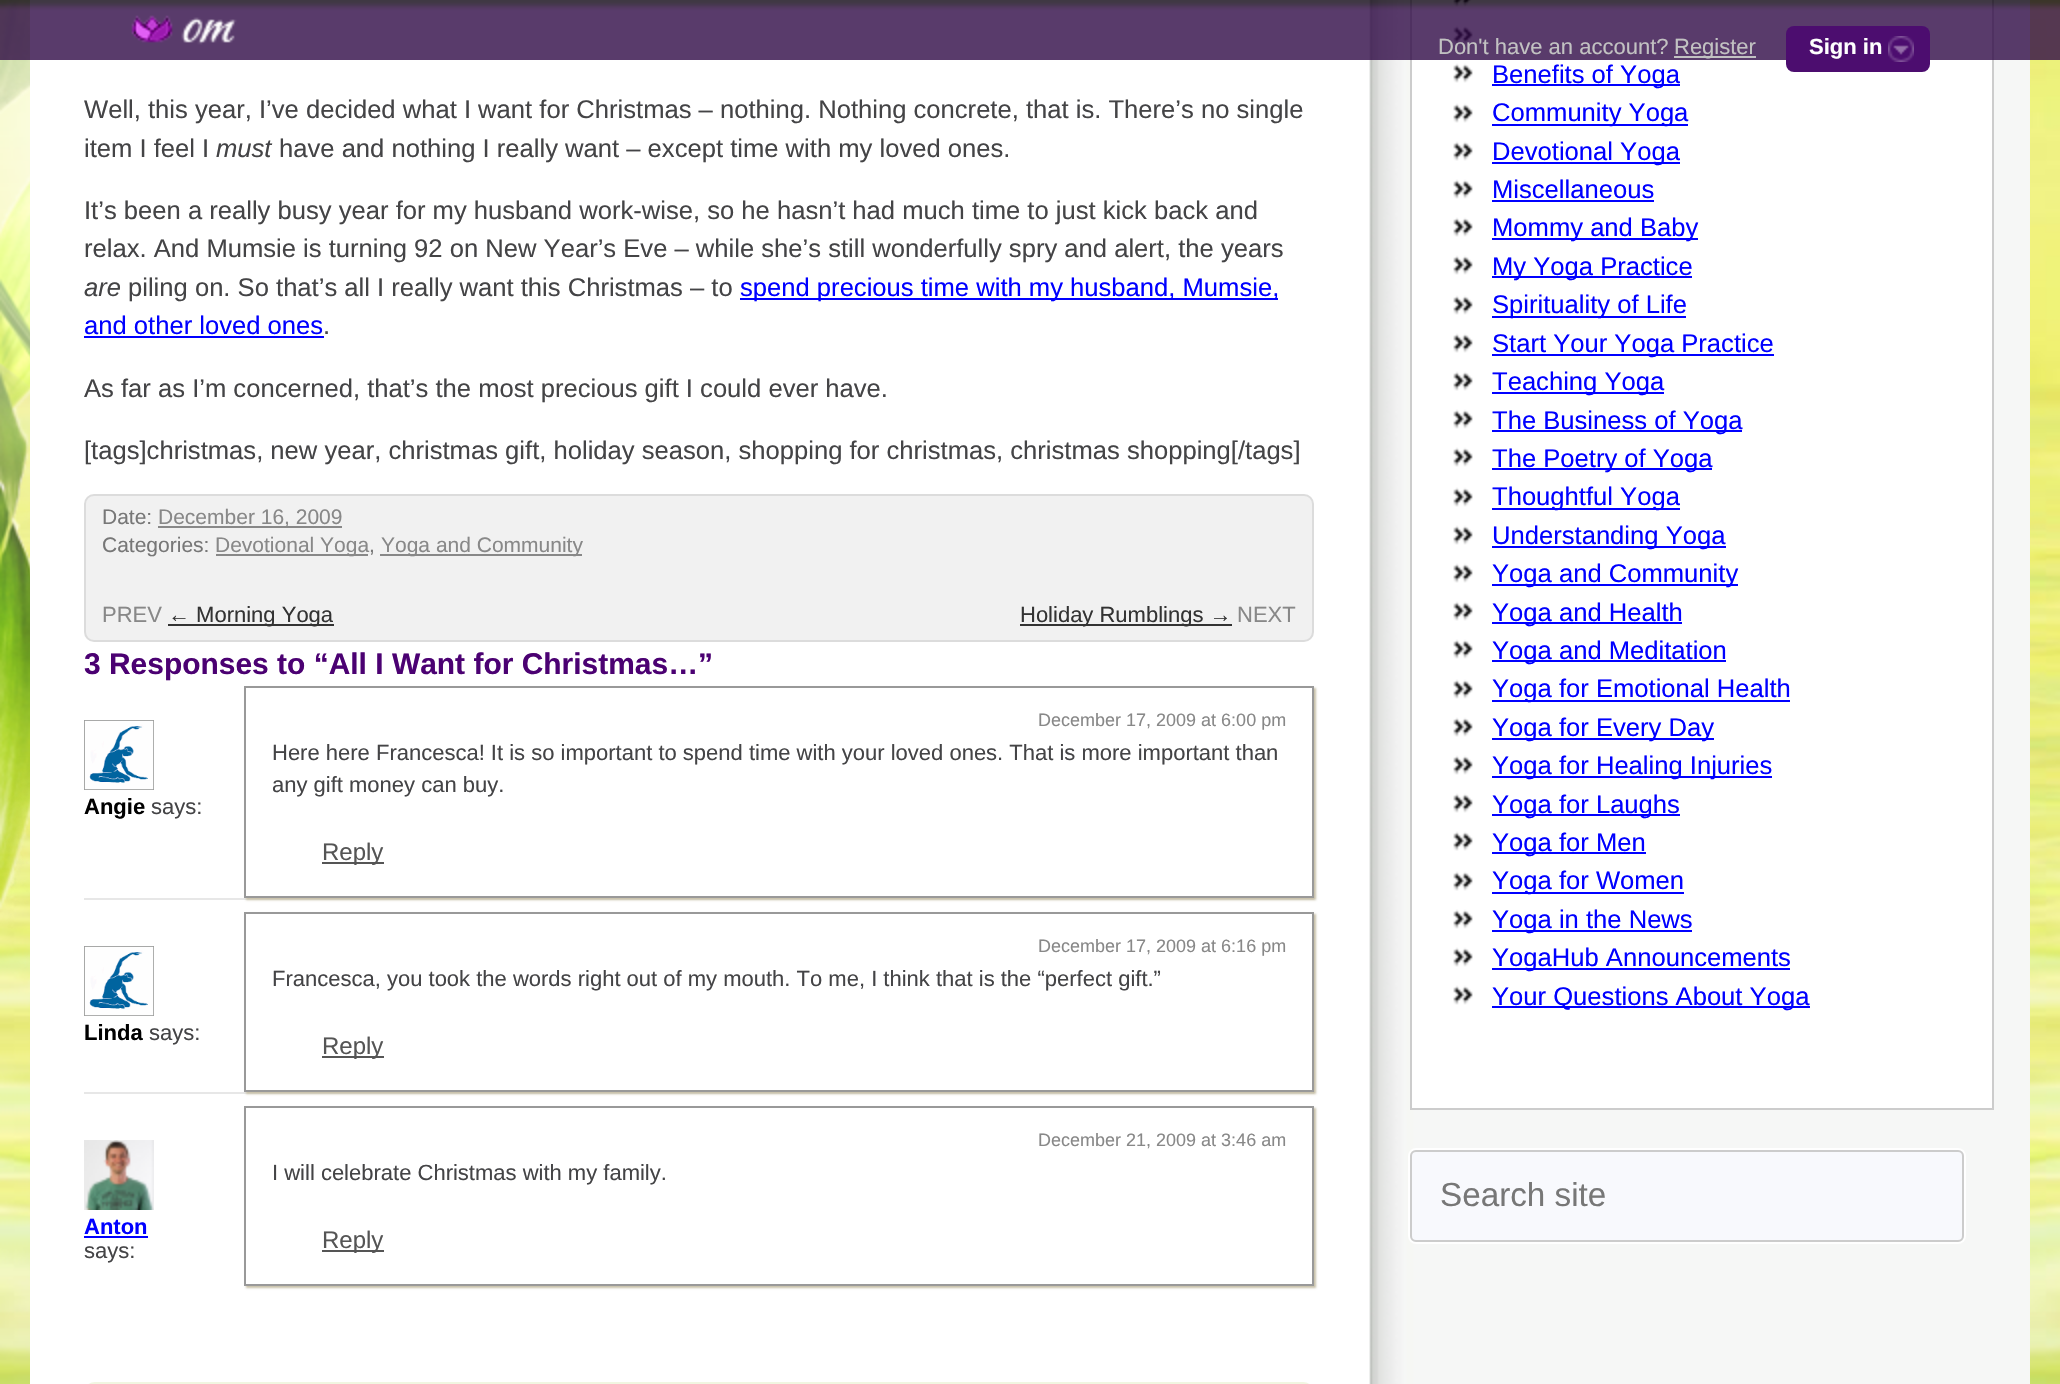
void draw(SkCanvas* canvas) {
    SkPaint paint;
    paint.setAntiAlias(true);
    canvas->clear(0xFFFFFFFF);
    canvas->drawImageRect(SkImages::DeferredFromEncodedData(SkData::MakeFromFileName("img1.png")), SkRect::MakeXYWH(0, 0, 2060, 1384), SkSamplingOptions());
    paint.setColor(0xFFFFFFFF);
    canvas->drawRect(SkRect::MakeXYWH(30, 0, 1339, 1384), paint);
    canvas->drawImageRect(SkImages::DeferredFromEncodedData(SkData::MakeFromFileName("img5.png")), SkRect::MakeXYWH(1369, 0, 661, 1384), SkSamplingOptions());
    canvas->drawRect(SkRect::MakeXYWH(1411, -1, 582, 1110), paint);
    paint.setStyle(SkPaint::kStroke_Style);
    paint.setStrokeWidth(2);
    paint.setColor(0xFFCCCCCC);
    canvas->drawRect(SkRect::MakeXYWH(1411, -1, 582, 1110), paint);
    canvas->drawImageRect(SkImages::DeferredFromEncodedData(SkData::MakeFromFileName("img8.png")), SkRect::MakeXYWH(1453, 0, 19, 7), SkSamplingOptions());
    canvas->drawImageRect(SkImages::DeferredFromEncodedData(SkData::MakeFromFileName("img9.png")), SkRect::MakeXYWH(1453, 25, 20, 20), SkSamplingOptions());
    canvas->drawImageRect(SkImages::DeferredFromEncodedData(SkData::MakeFromFileName("img2.png")), SkRect::MakeXYWH(0, 0, 2060, 60), SkSamplingOptions());
    canvas->drawImageRect(SkImages::DeferredFromEncodedData(SkData::MakeFromFileName("img3.png")), SkRect::MakeXYWH(131, 15, 106, 30), SkSamplingOptions());
    SkFont font1(fontMgr->matchFamilyStyle("Liberation Sans", SkFontStyle::Normal()), 22);
    font1.setSubpixel(true);
    paint.setStyle(SkPaint::kFill_Style);
    paint.setColor(0xFFC2C2C2);
    canvas->drawString("Don't have an account?", 1438, 54, font1, paint);
    canvas->drawRect(SkRect::MakeXYWH(1674, 56, 82, 2), paint);
    canvas->drawString("Register", 1674, 54, font1, paint);
    paint.setColor(0xFF4C0D6F);
    canvas->drawRoundRect(SkRect::MakeXYWH(1786, 26, 144, 46), 8, 8, paint);
    SkFont font2(fontMgr->matchFamilyStyle("Liberation Sans", SkFontStyle::Bold()), 22);
    font2.setSubpixel(true);
    paint.setColor(0xFFFFFFFF);
    canvas->drawString("Sign in", 1809, 54, font2, paint);
    canvas->drawImageRect(SkImages::DeferredFromEncodedData(SkData::MakeFromFileName("img4.png")), SkRect::MakeXYWH(1888, 36, 26, 26), SkSamplingOptions());
    SkFont font3(fontMgr->matchFamilyStyle("Liberation Sans", SkFontStyle::Normal()), 25.6f);
    font3.setSubpixel(true);
    paint.setColor(0xFF444446);
    canvas->drawString("Well, this year, I’ve decided what I want for Christmas – nothing. Nothing concrete, that is. There’s no single", 84, 118, font3, paint);
    canvas->drawString("item I feel I", 84, 157, font3, paint);
    SkFont font4(fontMgr->matchFamilyStyle("Liberation Sans", SkFontStyle::Italic()), 25.6f);
    font4.setSubpixel(true);
    canvas->drawString("must", 216, 157, font4, paint);
    canvas->drawString("have and nothing I really want – except time with my loved ones.", 279, 157, font3, paint);
    canvas->drawString("It’s been a really busy year for my husband work-wise, so he hasn’t had much time to just kick back and", 84, 219, font3, paint);
    canvas->drawString("relax. And Mumsie is turning 92 on New Year’s Eve – while she’s still wonderfully spry and alert, the years", 84, 257, font3, paint);
    canvas->drawString("are", 84, 296, font4, paint);
    canvas->drawString("piling on. So that’s all I really want this Christmas – to", 128, 296, font3, paint);
    paint.setColor(0xFF0000FF);
    canvas->drawRect(SkRect::MakeXYWH(740, 298, 538, 2), paint);
    canvas->drawString("spend precious time with my husband, Mumsie,", 740, 296, font3, paint);
    canvas->drawString("and other loved ones", 84, 334, font3, paint);
    canvas->drawRect(SkRect::MakeXYWH(84, 336, 240, 2), paint);
    paint.setColor(0xFF444446);
    canvas->drawString(".", 323, 334, font3, paint);
    canvas->drawString("As far as I’m concerned, that’s the most precious gift I could ever have.", 84, 397, font3, paint);
    canvas->drawString("[tags]christmas, new year, christmas gift, holiday season, shopping for christmas, christmas shopping[/tags]", 84, 459, font3, paint);
    paint.setColor(0xFFF1F1F1);
    canvas->drawRoundRect(SkRect::MakeXYWH(85, 495, 1228, 146), 9, 9, paint);
    paint.setStyle(SkPaint::kStroke_Style);
    paint.setColor(0xFFDCDCDC);
    canvas->drawRoundRect(SkRect::MakeXYWH(85, 495, 1228, 146), 9, 9, paint);
    SkFont font5(fontMgr->matchFamilyStyle("Liberation Sans", SkFontStyle::Normal()), 21);
    font5.setSubpixel(true);
    paint.setStyle(SkPaint::kFill_Style);
    paint.setColor(0xFF777777);
    canvas->drawString("Date:", 102, 524, font5, paint);
    paint.setColor(0xFF888888);
    canvas->drawRect(SkRect::MakeXYWH(158, 526, 184, 2), paint);
    canvas->drawString("December 16, 2009", 158, 524, font5, paint);
    paint.setColor(0xFF777777);
    canvas->drawString("Categories:", 102, 552, font5, paint);
    paint.setColor(0xFF888888);
    canvas->drawRect(SkRect::MakeXYWH(216, 554, 152, 2), paint);
    canvas->drawString("Devotional Yoga", 215, 552, font5, paint);
    paint.setColor(0xFF777777);
    canvas->drawString(",", 369, 552, font5, paint);
    paint.setColor(0xFF888888);
    canvas->drawRect(SkRect::MakeXYWH(380, 554, 202, 2), paint);
    canvas->drawString("Yoga and Community", 381, 552, font5, paint);
    canvas->drawString("PREV", 102, 622, font1, paint);
    paint.setColor(0xFF333333);
    canvas->drawRect(SkRect::MakeXYWH(168, 624, 166, 2), paint);
    canvas->drawString("← Morning Yoga", 168, 622, font1, paint);
    canvas->drawRect(SkRect::MakeXYWH(1020, 624, 212, 2), paint);
    canvas->drawString("Holiday Rumblings →", 1020, 622, font1, paint);
    paint.setColor(0xFF888888);
    canvas->drawString("NEXT", 1237, 622, font1, paint);
    SkFont font6(fontMgr->matchFamilyStyle("Liberation Sans", SkFontStyle::Bold()), 29.95f);
    font6.setSubpixel(true);
    paint.setColor(0xFF4B0172);
    canvas->drawString("3 Responses to “All I Want for Christmas…”", 84, 674, font6, paint);
    paint.setColor(0xFFE7E7E7);
    canvas->drawRect(SkRect::MakeXYWH(84, 898, 1230, 2), paint);
    canvas->save();
    canvas->clipPath(SkPathBuilder(SkPathFillType::kEvenOdd).moveTo(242, 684).lineTo(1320, 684).lineTo(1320, 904).lineTo(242, 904).close().moveTo(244, 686).lineTo(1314, 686).lineTo(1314, 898).lineTo(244, 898).close().detach(), true);
    paint.setColor(0xFFC8C1A9);
    paint.setMaskFilter(SkMaskFilter::MakeBlur(kNormal_SkBlurStyle, 1));
    canvas->drawRect(SkRect::MakeXYWH(246, 688, 1070, 212), paint);
    paint.setMaskFilter(nullptr);
    canvas->restore();
    paint.setStyle(SkPaint::kStroke_Style);
    paint.setColor(0xFF999999);
    canvas->drawRect(SkRect::MakeXYWH(245, 687, 1068, 210), paint);
    SkFont font7(fontMgr->matchFamilyStyle("Liberation Sans", SkFontStyle::Normal()), 18);
    font7.setSubpixel(true);
    paint.setStyle(SkPaint::kFill_Style);
    paint.setColor(0xFF888888);
    canvas->drawString("December 17, 2009 at 6:00 pm", 1038, 726, font7, paint);
    paint.setColor(0xFF444446);
    canvas->drawString("Here here Francesca! It is so important to spend time with your loved ones. That is more important than", 272, 760, font1, paint);
    canvas->drawString("any gift money can buy.", 272, 792, font1, paint);
    canvas->drawImageRect(SkImages::DeferredFromEncodedData(SkData::MakeFromFileName("img6.png")), SkRect::MakeXYWH(84, 720, 70, 70), SkSamplingOptions());
    paint.setColor(0xFF000000);
    canvas->drawString("Angie", 84, 814, font2, paint);
    paint.setColor(0xFF444446);
    canvas->drawString("says:", 151, 814, font1, paint);
    paint.setColor(0xFF555555);
    canvas->drawRect(SkRect::MakeXYWH(322, 862, 62, 2), paint);
    SkFont font8(fontMgr->matchFamilyStyle("Liberation Sans", SkFontStyle::Normal()), 24);
    font8.setSubpixel(true);
    canvas->drawString("Reply", 322, 860, font8, paint);
    paint.setColor(0xFFE7E7E7);
    canvas->drawRect(SkRect::MakeXYWH(84, 1092, 1230, 2), paint);
    canvas->save();
    canvas->clipPath(SkPathBuilder(SkPathFillType::kEvenOdd).moveTo(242, 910).lineTo(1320, 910).lineTo(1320, 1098).lineTo(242, 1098).close().moveTo(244, 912).lineTo(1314, 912).lineTo(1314, 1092).lineTo(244, 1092).close().detach(), true);
    paint.setColor(0xFFC8C1A9);
    paint.setMaskFilter(SkMaskFilter::MakeBlur(kNormal_SkBlurStyle, 1));
    canvas->drawRect(SkRect::MakeXYWH(246, 914, 1070, 180), paint);
    paint.setMaskFilter(nullptr);
    canvas->restore();
    paint.setStyle(SkPaint::kStroke_Style);
    paint.setColor(0xFF999999);
    canvas->drawRect(SkRect::MakeXYWH(245, 913, 1068, 178), paint);
    paint.setStyle(SkPaint::kFill_Style);
    paint.setColor(0xFF888888);
    canvas->drawString("December 17, 2009 at 6:16 pm", 1038, 952, font7, paint);
    paint.setColor(0xFF444446);
    canvas->drawString("Francesca, you took the words right out of my mouth. To me, I think that is the “perfect gift.”", 272, 986, font1, paint);
    canvas->drawImageRect(SkImages::DeferredFromEncodedData(SkData::MakeFromFileName("img6.png")), SkRect::MakeXYWH(84, 946, 70, 70), SkSamplingOptions());
    paint.setColor(0xFF000000);
    canvas->drawString("Linda", 84, 1040, font2, paint);
    paint.setColor(0xFF444446);
    canvas->drawString("says:", 149, 1040, font1, paint);
    paint.setColor(0xFF555555);
    canvas->drawRect(SkRect::MakeXYWH(322, 1056, 62, 2), paint);
    canvas->drawString("Reply", 322, 1054, font8, paint);
    canvas->save();
    canvas->clipPath(SkPathBuilder(SkPathFillType::kEvenOdd).moveTo(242, 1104).lineTo(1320, 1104).lineTo(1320, 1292).lineTo(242, 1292).close().moveTo(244, 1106).lineTo(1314, 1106).lineTo(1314, 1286).lineTo(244, 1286).close().detach(), true);
    paint.setColor(0xFFC8C1A9);
    paint.setMaskFilter(SkMaskFilter::MakeBlur(kNormal_SkBlurStyle, 1));
    canvas->drawRect(SkRect::MakeXYWH(246, 1108, 1070, 180), paint);
    paint.setMaskFilter(nullptr);
    canvas->restore();
    paint.setStyle(SkPaint::kStroke_Style);
    paint.setColor(0xFF999999);
    canvas->drawRect(SkRect::MakeXYWH(245, 1107, 1068, 178), paint);
    paint.setStyle(SkPaint::kFill_Style);
    paint.setColor(0xFF888888);
    canvas->drawString("December 21, 2009 at 3:46 am", 1038, 1146, font7, paint);
    paint.setColor(0xFF444446);
    canvas->drawString("I will celebrate Christmas with my family.", 272, 1180, font1, paint);
    canvas->drawImageRect(SkImages::DeferredFromEncodedData(SkData::MakeFromFileName("img7.png")), SkRect::MakeXYWH(84, 1140, 70, 70), SkSamplingOptions());
    paint.setColor(0xFF0000FF);
    canvas->drawString("Anton", 84, 1234, font2, paint);
    canvas->drawRect(SkRect::MakeXYWH(84, 1236, 64, 2), paint);
    paint.setColor(0xFF444446);
    canvas->drawString("says:", 84, 1258, font1, paint);
    paint.setColor(0xFF555555);
    canvas->drawRect(SkRect::MakeXYWH(322, 1250, 62, 2), paint);
    canvas->drawString("Reply", 322, 1248, font8, paint);
    paint.setColor(0xFFF1F6E1);
    canvas->drawRoundRect(SkRect::MakeXYWH(84, 1382, 1230, 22), 20, 20, paint);
    canvas->drawImageRect(SkImages::DeferredFromEncodedData(SkData::MakeFromFileName("img9.png")), SkRect::MakeXYWH(1453, 63, 20, 20), SkSamplingOptions());
    paint.setColor(0xFF0000FF);
    canvas->drawRect(SkRect::MakeXYWH(1492, 84, 188, 2), paint);
    canvas->drawString("Benefits of Yoga", 1492, 83, font3, paint);
    canvas->drawImageRect(SkImages::DeferredFromEncodedData(SkData::MakeFromFileName("img9.png")), SkRect::MakeXYWH(1453, 103, 20, 20), SkSamplingOptions());
    canvas->drawRect(SkRect::MakeXYWH(1492, 124, 196, 2), paint);
    canvas->drawString("Community Yoga", 1492, 121, font3, paint);
    canvas->drawImageRect(SkImages::DeferredFromEncodedData(SkData::MakeFromFileName("img9.png")), SkRect::MakeXYWH(1453, 141, 20, 20), SkSamplingOptions());
    canvas->drawRect(SkRect::MakeXYWH(1492, 162, 188, 2), paint);
    canvas->drawString("Devotional Yoga", 1492, 160, font3, paint);
    canvas->drawImageRect(SkImages::DeferredFromEncodedData(SkData::MakeFromFileName("img9.png")), SkRect::MakeXYWH(1453, 179, 20, 20), SkSamplingOptions());
    canvas->drawString("Miscellaneous", 1492, 198, font3, paint);
    canvas->drawRect(SkRect::MakeXYWH(1492, 200, 162, 2), paint);
    canvas->drawImageRect(SkImages::DeferredFromEncodedData(SkData::MakeFromFileName("img9.png")), SkRect::MakeXYWH(1453, 217, 20, 20), SkSamplingOptions());
    canvas->drawRect(SkRect::MakeXYWH(1492, 238, 206, 2), paint);
    canvas->drawString("Mommy and Baby", 1492, 236, font3, paint);
    canvas->drawImageRect(SkImages::DeferredFromEncodedData(SkData::MakeFromFileName("img9.png")), SkRect::MakeXYWH(1453, 255, 20, 20), SkSamplingOptions());
    canvas->drawRect(SkRect::MakeXYWH(1492, 276, 200, 2), paint);
    canvas->drawString("My Yoga Practice", 1492, 275, font3, paint);
    canvas->drawImageRect(SkImages::DeferredFromEncodedData(SkData::MakeFromFileName("img9.png")), SkRect::MakeXYWH(1453, 295, 20, 20), SkSamplingOptions());
    canvas->drawRect(SkRect::MakeXYWH(1492, 316, 194, 2), paint);
    canvas->drawString("Spirituality of Life", 1492, 313, font3, paint);
    canvas->drawImageRect(SkImages::DeferredFromEncodedData(SkData::MakeFromFileName("img9.png")), SkRect::MakeXYWH(1453, 333, 20, 20), SkSamplingOptions());
    canvas->drawRect(SkRect::MakeXYWH(1492, 354, 282, 2), paint);
    canvas->drawString("Start Your Yoga Practice", 1492, 352, font3, paint);
    canvas->drawImageRect(SkImages::DeferredFromEncodedData(SkData::MakeFromFileName("img9.png")), SkRect::MakeXYWH(1453, 371, 20, 20), SkSamplingOptions());
    canvas->drawRect(SkRect::MakeXYWH(1492, 392, 172, 2), paint);
    canvas->drawString("Teaching Yoga", 1492, 390, font3, paint);
    canvas->drawImageRect(SkImages::DeferredFromEncodedData(SkData::MakeFromFileName("img9.png")), SkRect::MakeXYWH(1453, 409, 20, 20), SkSamplingOptions());
    canvas->drawRect(SkRect::MakeXYWH(1492, 430, 250, 2), paint);
    canvas->drawString("The Business of Yoga", 1492, 429, font3, paint);
    canvas->drawImageRect(SkImages::DeferredFromEncodedData(SkData::MakeFromFileName("img9.png")), SkRect::MakeXYWH(1453, 447, 20, 20), SkSamplingOptions());
    canvas->drawRect(SkRect::MakeXYWH(1492, 468, 220, 2), paint);
    canvas->drawString("The Poetry of Yoga", 1492, 467, font3, paint);
    canvas->drawImageRect(SkImages::DeferredFromEncodedData(SkData::MakeFromFileName("img9.png")), SkRect::MakeXYWH(1453, 487, 20, 20), SkSamplingOptions());
    canvas->drawRect(SkRect::MakeXYWH(1492, 508, 188, 2), paint);
    canvas->drawString("Thoughtful Yoga", 1492, 505, font3, paint);
    canvas->drawImageRect(SkImages::DeferredFromEncodedData(SkData::MakeFromFileName("img9.png")), SkRect::MakeXYWH(1453, 525, 20, 20), SkSamplingOptions());
    canvas->drawRect(SkRect::MakeXYWH(1492, 546, 234, 2), paint);
    canvas->drawString("Understanding Yoga", 1492, 544, font3, paint);
    canvas->drawImageRect(SkImages::DeferredFromEncodedData(SkData::MakeFromFileName("img9.png")), SkRect::MakeXYWH(1453, 563, 20, 20), SkSamplingOptions());
    canvas->drawRect(SkRect::MakeXYWH(1492, 584, 246, 2), paint);
    canvas->drawString("Yoga and Community", 1492, 582, font3, paint);
    canvas->drawImageRect(SkImages::DeferredFromEncodedData(SkData::MakeFromFileName("img9.png")), SkRect::MakeXYWH(1453, 601, 20, 20), SkSamplingOptions());
    canvas->drawRect(SkRect::MakeXYWH(1492, 622, 190, 2), paint);
    canvas->drawString("Yoga and Health", 1492, 621, font3, paint);
    canvas->drawImageRect(SkImages::DeferredFromEncodedData(SkData::MakeFromFileName("img9.png")), SkRect::MakeXYWH(1453, 639, 20, 20), SkSamplingOptions());
    canvas->drawRect(SkRect::MakeXYWH(1492, 660, 234, 2), paint);
    canvas->drawString("Yoga and Meditation", 1492, 659, font3, paint);
    canvas->drawImageRect(SkImages::DeferredFromEncodedData(SkData::MakeFromFileName("img9.png")), SkRect::MakeXYWH(1453, 679, 20, 20), SkSamplingOptions());
    canvas->drawRect(SkRect::MakeXYWH(1492, 700, 298, 2), paint);
    canvas->drawString("Yoga for Emotional Health", 1492, 697, font3, paint);
    canvas->drawImageRect(SkImages::DeferredFromEncodedData(SkData::MakeFromFileName("img9.png")), SkRect::MakeXYWH(1453, 717, 20, 20), SkSamplingOptions());
    canvas->drawRect(SkRect::MakeXYWH(1492, 738, 222, 2), paint);
    canvas->drawString("Yoga for Every Day", 1492, 736, font3, paint);
    canvas->drawImageRect(SkImages::DeferredFromEncodedData(SkData::MakeFromFileName("img9.png")), SkRect::MakeXYWH(1453, 755, 20, 20), SkSamplingOptions());
    canvas->drawRect(SkRect::MakeXYWH(1492, 776, 280, 2), paint);
    canvas->drawString("Yoga for Healing Injuries", 1492, 774, font3, paint);
    canvas->drawImageRect(SkImages::DeferredFromEncodedData(SkData::MakeFromFileName("img9.png")), SkRect::MakeXYWH(1453, 793, 20, 20), SkSamplingOptions());
    canvas->drawRect(SkRect::MakeXYWH(1492, 814, 188, 2), paint);
    canvas->drawString("Yoga for Laughs", 1492, 813, font3, paint);
    canvas->drawImageRect(SkImages::DeferredFromEncodedData(SkData::MakeFromFileName("img9.png")), SkRect::MakeXYWH(1453, 831, 20, 20), SkSamplingOptions());
    canvas->drawRect(SkRect::MakeXYWH(1492, 852, 154, 2), paint);
    canvas->drawString("Yoga for Men", 1492, 851, font3, paint);
    canvas->drawImageRect(SkImages::DeferredFromEncodedData(SkData::MakeFromFileName("img9.png")), SkRect::MakeXYWH(1453, 871, 20, 20), SkSamplingOptions());
    canvas->drawRect(SkRect::MakeXYWH(1492, 892, 192, 2), paint);
    canvas->drawString("Yoga for Women", 1492, 889, font3, paint);
    canvas->drawImageRect(SkImages::DeferredFromEncodedData(SkData::MakeFromFileName("img9.png")), SkRect::MakeXYWH(1453, 909, 20, 20), SkSamplingOptions());
    canvas->drawRect(SkRect::MakeXYWH(1492, 930, 200, 2), paint);
    canvas->drawString("Yoga in the News", 1492, 928, font3, paint);
    canvas->drawImageRect(SkImages::DeferredFromEncodedData(SkData::MakeFromFileName("img9.png")), SkRect::MakeXYWH(1453, 947, 20, 20), SkSamplingOptions());
    canvas->drawRect(SkRect::MakeXYWH(1492, 968, 298, 2), paint);
    canvas->drawString("YogaHub Announcements", 1492, 966, font3, paint);
    canvas->drawImageRect(SkImages::DeferredFromEncodedData(SkData::MakeFromFileName("img9.png")), SkRect::MakeXYWH(1453, 985, 20, 20), SkSamplingOptions());
    canvas->drawRect(SkRect::MakeXYWH(1492, 1006, 318, 2), paint);
    canvas->drawString("Your Questions About Yoga", 1492, 1005, font3, paint);
    paint.setStyle(SkPaint::kStroke_Style);
    paint.setColor(0xFFFFFFFF);
    canvas->drawRoundRect(SkRect::MakeXYWH(1409, 1149, 556, 94), 7, 7, paint);
    paint.setStyle(SkPaint::kFill_Style);
    paint.setColor(0xFFF8F9FD);
    canvas->drawRoundRect(SkRect::MakeXYWH(1411, 1151, 552, 90), 5, 5, paint);
    paint.setStyle(SkPaint::kStroke_Style);
    paint.setColor(0xFFCCCCCC);
    canvas->drawRoundRect(SkRect::MakeXYWH(1411, 1151, 552, 90), 5, 5, paint);
    SkFont font9(fontMgr->matchFamilyStyle("Liberation Sans", SkFontStyle::Normal()), 33.25f);
    font9.setSubpixel(true);
    paint.setStyle(SkPaint::kFill_Style);
    paint.setColor(0xFF777777);
    canvas->drawString("Search site", 1440, 1206, font9, paint);
}
